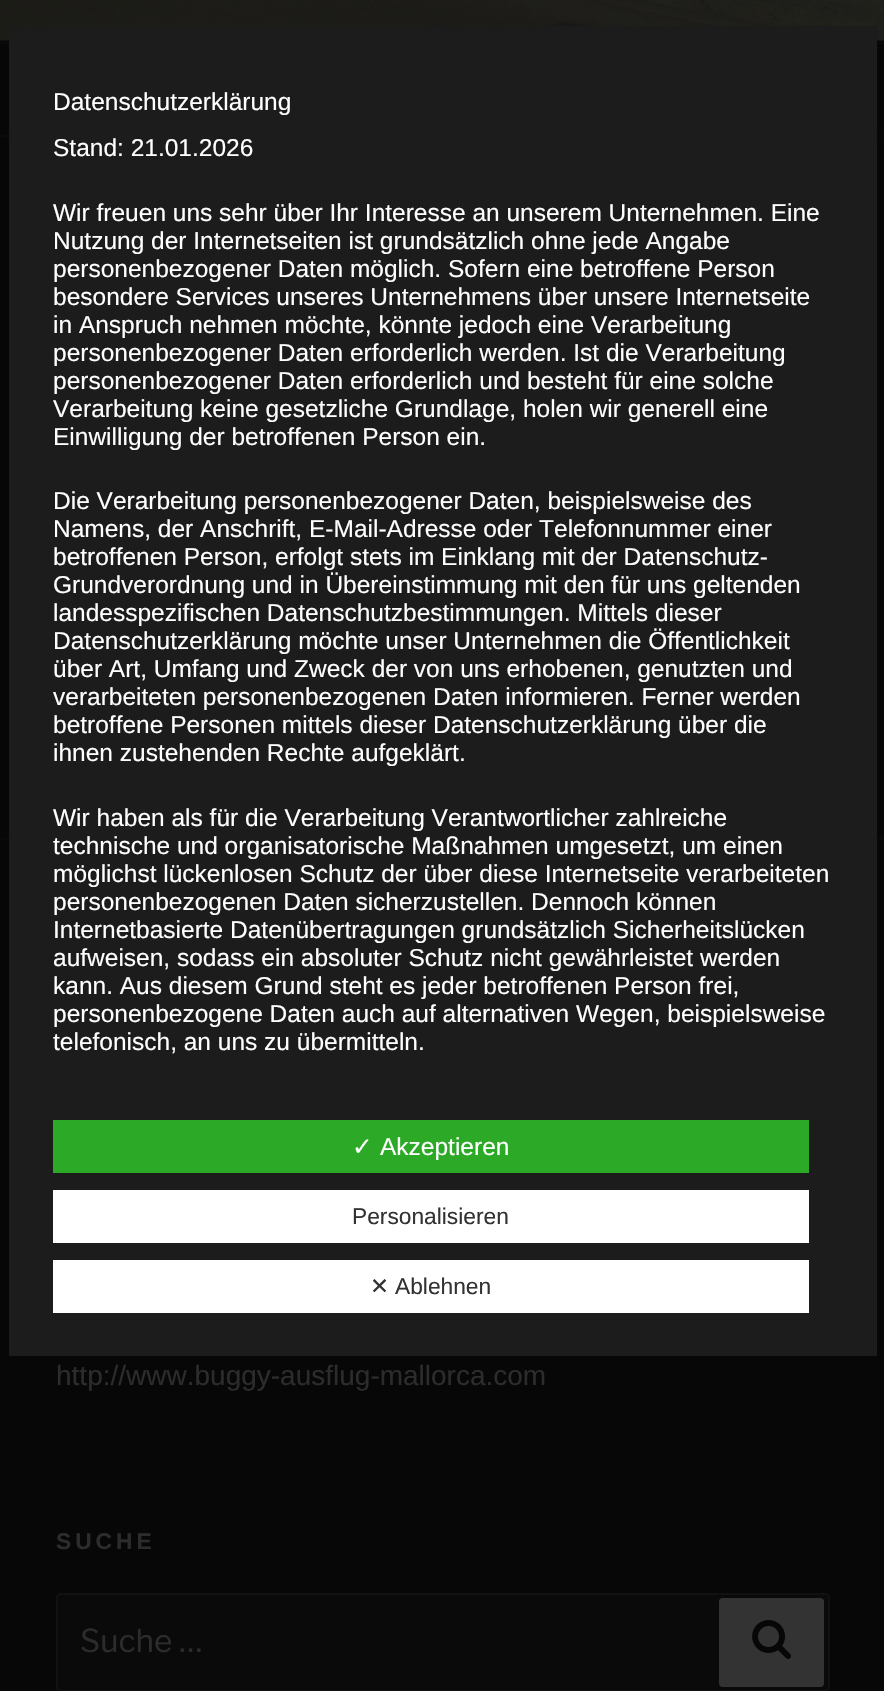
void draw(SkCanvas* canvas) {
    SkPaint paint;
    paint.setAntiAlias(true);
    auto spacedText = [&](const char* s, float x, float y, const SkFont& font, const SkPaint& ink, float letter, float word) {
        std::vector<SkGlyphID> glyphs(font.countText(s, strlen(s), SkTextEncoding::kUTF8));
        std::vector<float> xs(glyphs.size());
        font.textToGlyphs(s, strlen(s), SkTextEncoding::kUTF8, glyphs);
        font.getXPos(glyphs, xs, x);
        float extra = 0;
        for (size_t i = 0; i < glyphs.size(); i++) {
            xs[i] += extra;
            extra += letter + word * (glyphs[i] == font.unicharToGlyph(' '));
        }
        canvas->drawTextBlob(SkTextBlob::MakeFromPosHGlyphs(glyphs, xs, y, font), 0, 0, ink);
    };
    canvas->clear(0xFF070707);
    canvas->drawImageRect(SkImages::DeferredFromEncodedData(SkData::MakeFromFileName("img1.png")), SkRect::MakeXYWH(0, 0, 884, 41), SkSamplingOptions());
    {
        const SkColor colors[] = {0x00000000, 0x4D000000, 0x4D000000};
        const float stops[] = {0, 0.75f, 1};
        const SkPoint ends[] = {{443, -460}, {443, 42}};
        paint.setShader(SkGradientShader::MakeLinear(ends, colors, stops, 3, SkTileMode::kClamp));
        paint.setAlpha(255);
    }
    canvas->drawRect(SkRect::MakeXYWH(0, 0, 884, 41), paint);
    paint.setShader(nullptr);
    paint.setColor(0xFF0A0A0A);
    canvas->drawRect(SkRect::MakeXYWH(0, 42, 884, 2), paint);
    canvas->drawRect(SkRect::MakeXYWH(0, 135, 884, 2), paint);
    canvas->drawRect(SkRect::MakeXYWH(0, 838, 884, 2), paint);
    paint.setColor(0xFF1D1C1C);
    canvas->drawRect(SkRect::MakeXYWH(9, 26, 868, 1330), paint);
    SkFont font1(fontMgr->matchFamilyStyle("Liberation Sans", SkFontStyle::Normal()), 24.5f);
    font1.setSubpixel(true);
    paint.setColor(0xFFFFFFFF);
    canvas->drawString("Datenschutzerklärung", 53, 110, font1, paint);
    canvas->drawString("Stand: 21.01.2026", 53, 156, font1, paint);
    canvas->drawString("Wir freuen uns sehr über Ihr Interesse an unserem Unternehmen. Eine", 53, 221, font1, paint);
    canvas->drawString("Nutzung der Internetseiten ist grundsätzlich ohne jede Angabe", 53, 249, font1, paint);
    canvas->drawString("personenbezogener Daten möglich. Sofern eine betroffene Person", 53, 277, font1, paint);
    canvas->drawString("besondere Services unseres Unternehmens über unsere Internetseite", 53, 305, font1, paint);
    canvas->drawString("in Anspruch nehmen möchte, könnte jedoch eine Verarbeitung", 53, 333, font1, paint);
    canvas->drawString("personenbezogener Daten erforderlich werden. Ist die Verarbeitung", 53, 361, font1, paint);
    canvas->drawString("personenbezogener Daten erforderlich und besteht für eine solche", 53, 389, font1, paint);
    canvas->drawString("Verarbeitung keine gesetzliche Grundlage, holen wir generell eine", 53, 417, font1, paint);
    canvas->drawString("Einwilligung der betroffenen Person ein.", 53, 445, font1, paint);
    canvas->drawString("Die Verarbeitung personenbezogener Daten, beispielsweise des", 53, 509, font1, paint);
    canvas->drawString("Namens, der Anschrift, E-Mail-Adresse oder Telefonnummer einer", 53, 537, font1, paint);
    canvas->drawString("betroffenen Person, erfolgt stets im Einklang mit der Datenschutz-", 53, 565, font1, paint);
    canvas->drawString("Grundverordnung und in Übereinstimmung mit den für uns geltenden", 53, 593, font1, paint);
    canvas->drawString("landesspezifischen Datenschutzbestimmungen. Mittels dieser", 53, 621, font1, paint);
    canvas->drawString("Datenschutzerklärung möchte unser Unternehmen die Öffentlichkeit", 53, 649, font1, paint);
    canvas->drawString("über Art, Umfang und Zweck der von uns erhobenen, genutzten und", 53, 677, font1, paint);
    canvas->drawString("verarbeiteten personenbezogenen Daten informieren. Ferner werden", 53, 705, font1, paint);
    canvas->drawString("betroffene Personen mittels dieser Datenschutzerklärung über die", 53, 733, font1, paint);
    canvas->drawString("ihnen zustehenden Rechte aufgeklärt.", 53, 761, font1, paint);
    canvas->drawString("Wir haben als für die Verarbeitung Verantwortlicher zahlreiche", 53, 826, font1, paint);
    canvas->drawString("technische und organisatorische Maßnahmen umgesetzt, um einen", 53, 854, font1, paint);
    canvas->drawString("möglichst lückenlosen Schutz der über diese Internetseite verarbeiteten", 53, 882, font1, paint);
    canvas->drawString("personenbezogenen Daten sicherzustellen. Dennoch können", 53, 910, font1, paint);
    canvas->drawString("Internetbasierte Datenübertragungen grundsätzlich Sicherheitslücken", 53, 938, font1, paint);
    canvas->drawString("aufweisen, sodass ein absoluter Schutz nicht gewährleistet werden", 53, 966, font1, paint);
    canvas->drawString("kann. Aus diesem Grund steht es jeder betroffenen Person frei,", 53, 994, font1, paint);
    canvas->drawString("personenbezogene Daten auch auf alternativen Wegen, beispielsweise", 53, 1022, font1, paint);
    canvas->drawString("telefonisch, an uns zu übermitteln.", 53, 1050, font1, paint);
    paint.setColor(0xFF2CAA27);
    canvas->drawRect(SkRect::MakeXYWH(53, 1120, 756, 53), paint);
    SkFont font2(fontMgr->matchFamilyStyle("DejaVu Sans", SkFontStyle::Normal()), 24.5f);
    font2.setSubpixel(true);
    paint.setColor(0xFFFFFFFF);
    canvas->drawString("✓", 352, 1155, font2, paint);
    canvas->drawString("Akzeptieren", 380, 1155, font1, paint);
    canvas->drawRect(SkRect::MakeXYWH(53, 1190, 756, 53), paint);
    SkFont font3(fontMgr->matchFamilyStyle("Liberation Sans", SkFontStyle::Normal()), 22.75f);
    font3.setSubpixel(true);
    paint.setColor(0xFF333333);
    canvas->drawString("Personalisieren", 352, 1224, font3, paint);
    paint.setColor(0xFFFFFFFF);
    canvas->drawRect(SkRect::MakeXYWH(53, 1260, 756, 53), paint);
    SkFont font4(fontMgr->matchFamilyStyle("DejaVu Sans", SkFontStyle::Normal()), 22.75f);
    font4.setSubpixel(true);
    paint.setColor(0xFF333333);
    canvas->drawString("✕", 370, 1294, font4, paint);
    canvas->drawString("Ablehnen", 395, 1294, font3, paint);
    SkFont font5(fontMgr->matchFamilyStyle("Liberation Sans", SkFontStyle::Normal()), 28);
    font5.setSubpixel(true);
    paint.setColor(0xFF2C2C2C);
    canvas->drawString("http://www.buggy-ausflug-mallorca.com", 56, 1385, font5, paint);
    SkFont font6(fontMgr->matchFamilyStyle("Liberation Sans", SkFontStyle::Bold()), 22.75f);
    font6.setSubpixel(true);
    spacedText("SUCHE", 56, 1549, font6, paint, 4, 0);
    paint.setColor(0xFF0A0A0A);
    canvas->drawRoundRect(SkRect::MakeXYWH(57, 1594, 772, 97), 4, 4, paint);
    paint.setStyle(SkPaint::kStroke_Style);
    paint.setStrokeWidth(2);
    paint.setColor(0xFF111111);
    canvas->drawRoundRect(SkRect::MakeXYWH(57, 1594, 772, 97), 4, 4, paint);
    SkFont font7(fontMgr->matchFamilyStyle("Libre Franklin", SkFontStyle::Normal()), 31.5f);
    font7.setSubpixel(true);
    paint.setStyle(SkPaint::kFill_Style);
    paint.setColor(0xFF2C2C2C);
    canvas->drawString("Suche …", 80, 1652, font7, paint);
    paint.setColor(0xFF333333);
    canvas->drawRoundRect(SkRect::MakeXYWH(719, 1598, 105, 89), 4, 4, paint);
    canvas->drawImageRect(SkImages::DeferredFromEncodedData(SkData::MakeFromFileName("img2.png")), SkRect::MakeXYWH(752, 1620, 39, 39), SkSamplingOptions());
}
